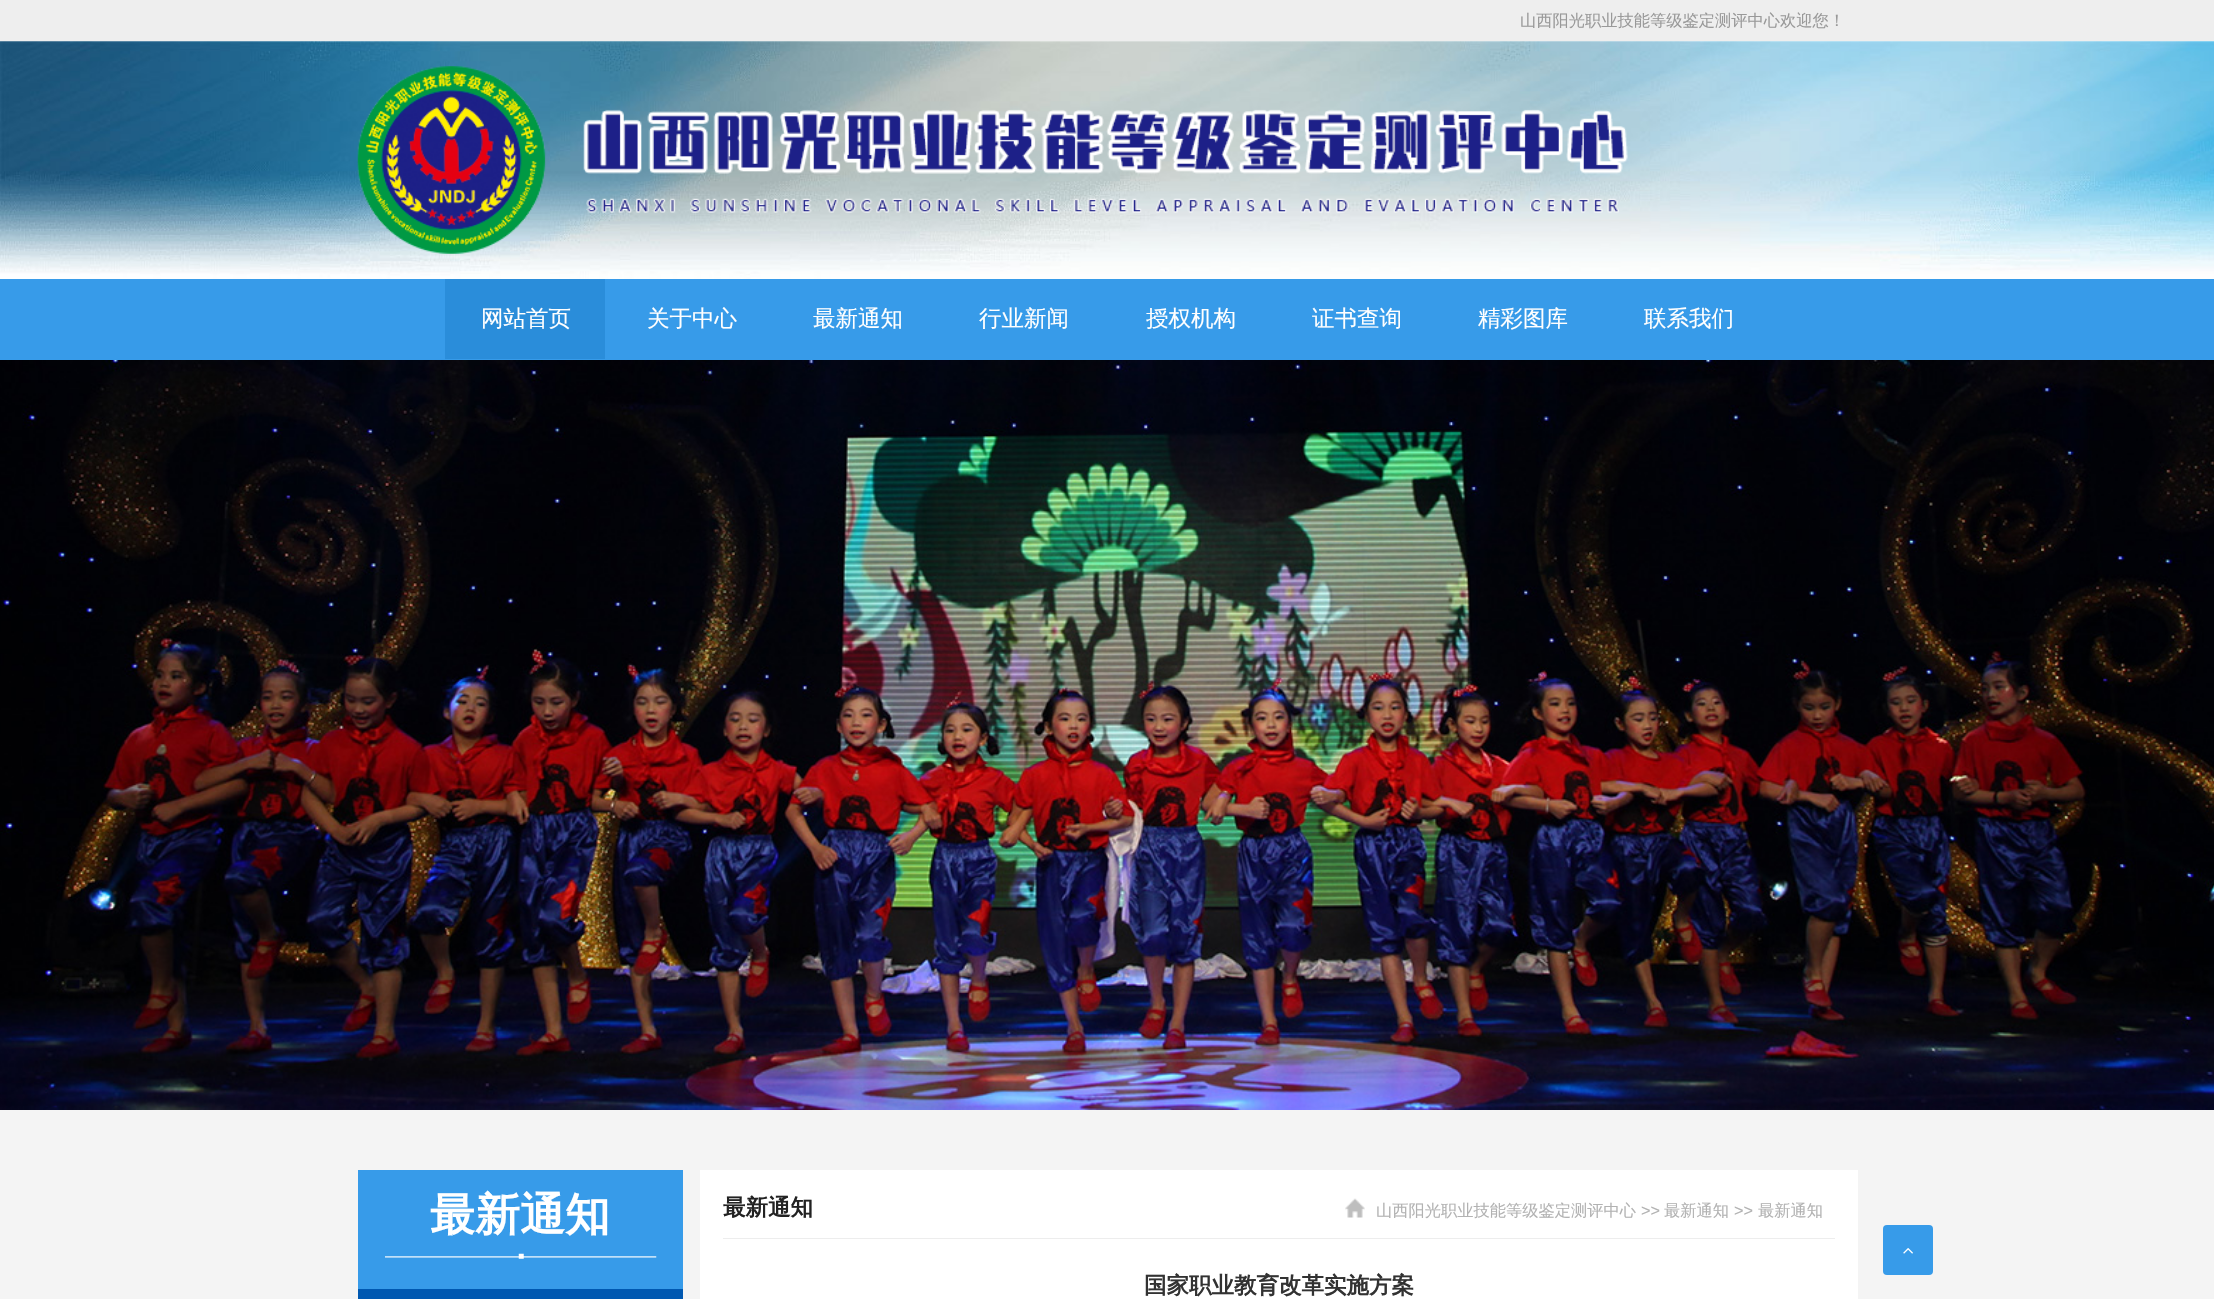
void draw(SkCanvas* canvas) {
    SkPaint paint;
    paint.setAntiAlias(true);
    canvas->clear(0xFFFFFFFF);
    paint.setColor(0xFFEEEEEE);
    canvas->drawRect(SkRect::MakeXYWH(0, 0, 2214, 41), paint);
    SkFont font1(fontMgr->matchFamilyStyle("WenQuanYi Zen Hei", SkFontStyle(500, SkFontStyle::kNormal_Width, SkFontStyle::kUpright_Slant)), 16.25f);
    font1.setSubpixel(true);
    paint.setColor(0xFF999999);
    canvas->drawString("山西阳光职业技能等级鉴定测评中心欢迎您！", 1520, 26, font1, paint);
    canvas->drawImageRect(SkImages::DeferredFromEncodedData(SkData::MakeFromFileName("img1.png")), SkRect::MakeXYWH(0, 41, 2214, 238), SkSamplingOptions());
    canvas->drawImageRect(SkImages::DeferredFromEncodedData(SkData::MakeFromFileName("img2.png")), SkRect::MakeXYWH(357, 66, 1271, 188), SkSamplingOptions());
    paint.setColor(0xFF379BE9);
    canvas->drawRect(SkRect::MakeXYWH(0, 279, 2214, 81), paint);
    paint.setColor(0xFF2A8DDA);
    canvas->drawRect(SkRect::MakeXYWH(445, 279, 160, 80), paint);
    SkFont font2(fontMgr->matchFamilyStyle("WenQuanYi Zen Hei", SkFontStyle(500, SkFontStyle::kNormal_Width, SkFontStyle::kUpright_Slant)), 22.5f);
    font2.setSubpixel(true);
    paint.setColor(0xFFFFFFFF);
    canvas->drawString("网站首页", 481, 326, font2, paint);
    canvas->drawString("关于中心", 647, 326, font2, paint);
    canvas->drawString("最新通知", 813, 326, font2, paint);
    canvas->drawString("行业新闻", 979, 326, font2, paint);
    canvas->drawString("授权机构", 1146, 326, font2, paint);
    canvas->drawString("证书查询", 1312, 326, font2, paint);
    canvas->drawString("精彩图库", 1478, 326, font2, paint);
    canvas->drawString("联系我们", 1644, 326, font2, paint);
    canvas->drawImageRect(SkImages::DeferredFromEncodedData(SkData::MakeFromFileName("img3.png")), SkRect::MakeXYWH(0, 360, 2214, 750), SkSamplingOptions());
    paint.setColor(0xFFF4F4F4);
    canvas->drawRect(SkRect::MakeXYWH(0, 1110, 2214, 189), paint);
    paint.setColor(0xFF379BE9);
    canvas->drawRect(SkRect::MakeXYWH(358, 1170, 325, 119), paint);
    SkFont font3(fontMgr->matchFamilyStyle("WenQuanYi Zen Hei", SkFontStyle::Bold()), 45);
    font3.setSubpixel(true);
    paint.setColor(0xFFFFFFFF);
    canvas->drawString("最新通知", 430, 1230, font3, paint);
    canvas->drawImageRect(SkImages::DeferredFromEncodedData(SkData::MakeFromFileName("img4.png")), SkRect::MakeXYWH(385, 1253, 272, 6), SkSamplingOptions());
    paint.setColor(0xFF0058B1);
    canvas->drawRect(SkRect::MakeXYWH(358, 1289, 325, 10), paint);
    paint.setColor(0xFFFFFFFF);
    canvas->drawRect(SkRect::MakeXYWH(700, 1170, 1158, 129), paint);
    paint.setColor(0xFFEDEDED);
    canvas->drawRect(SkRect::MakeXYWH(723, 1238, 1112, 1), paint);
    SkFont font4(fontMgr->matchFamilyStyle("WenQuanYi Zen Hei", SkFontStyle::Bold()), 22.5f);
    font4.setSubpixel(true);
    paint.setColor(0xFF222222);
    canvas->drawString("最新通知", 723, 1215, font4, paint);
    canvas->drawImageRect(SkImages::DeferredFromEncodedData(SkData::MakeFromFileName("img5.png")), SkRect::MakeXYWH(1345, 1198, 20, 20), SkSamplingOptions());
    paint.setColor(0xFFB2B2B2);
    canvas->drawString("山西阳光职业技能等级鉴定测评中心", 1376, 1216, font1, paint);
    SkFont font5(fontMgr->matchFamilyStyle("Liberation Sans", SkFontStyle::Normal()), 16.25f);
    font5.setSubpixel(true);
    canvas->drawString(">>", 1641, 1216, font5, paint);
    canvas->drawString("最新通知", 1664, 1216, font1, paint);
    canvas->drawString(">>", 1734, 1216, font5, paint);
    canvas->drawString("最新通知", 1758, 1216, font1, paint);
    paint.setColor(0xFF323232);
    canvas->drawString("国家职业教育改革实施方案", 1144, 1293, font4, paint);
    paint.setColor(0xFF379BE9);
    canvas->drawRoundRect(SkRect::MakeXYWH(1883, 1225, 50, 50), 4, 4, paint);
    canvas->drawImageRect(SkImages::DeferredFromEncodedData(SkData::MakeFromFileName("img6.png")), SkRect::MakeXYWH(1903, 1248, 10, 6), SkSamplingOptions());
}
